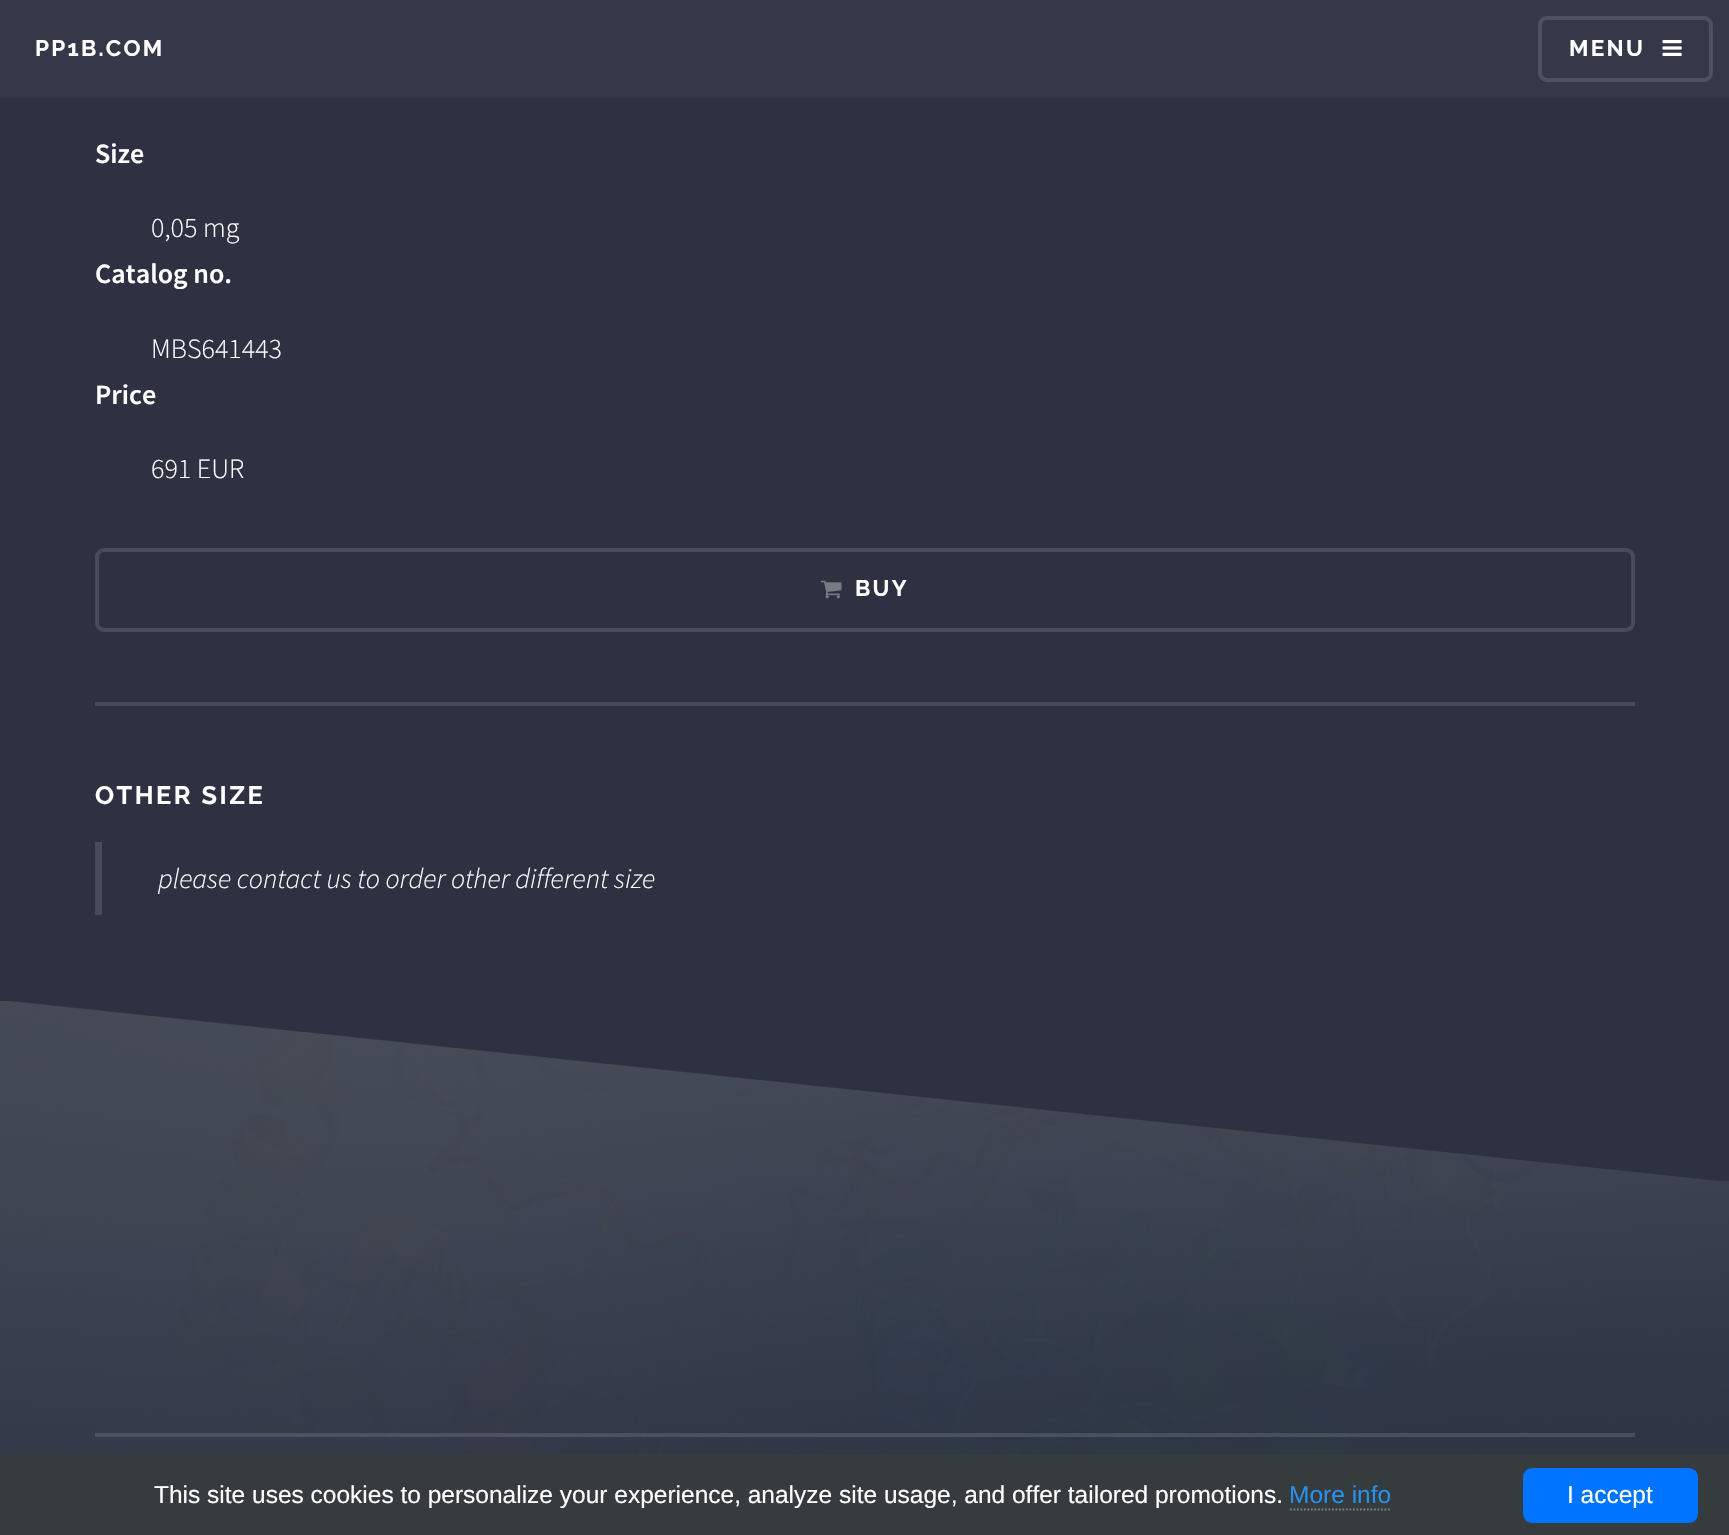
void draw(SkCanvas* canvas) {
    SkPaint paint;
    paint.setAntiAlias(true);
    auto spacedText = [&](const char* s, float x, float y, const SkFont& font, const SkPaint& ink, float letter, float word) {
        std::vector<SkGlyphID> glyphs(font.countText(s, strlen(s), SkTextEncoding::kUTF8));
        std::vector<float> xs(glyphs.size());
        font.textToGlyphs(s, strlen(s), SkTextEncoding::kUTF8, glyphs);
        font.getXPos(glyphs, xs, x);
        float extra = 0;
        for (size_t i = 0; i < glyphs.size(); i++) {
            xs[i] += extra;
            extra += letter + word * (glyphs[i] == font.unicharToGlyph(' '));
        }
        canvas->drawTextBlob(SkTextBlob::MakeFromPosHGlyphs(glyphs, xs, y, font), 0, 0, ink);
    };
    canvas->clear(0xFFFFFFFF);
    paint.setColor(0xFF2E3141);
    canvas->drawRect(SkRect::MakeXYWH(0, 0, 1729, 999), paint);
    paint.setColor(0xF2353849);
    canvas->drawRect(SkRect::MakeXYWH(0, 0, 1729, 98), paint);
    SkFont font1(fontMgr->matchFamilyStyle("Raleway", SkFontStyle::Bold()), 22.5f);
    font1.setSubpixel(true);
    paint.setColor(0xFFFFFFFF);
    spacedText("PP1B.COM", 35, 56, font1, paint, 2.25f, 0);
    paint.setStyle(SkPaint::kStroke_Style);
    paint.setStrokeWidth(4);
    paint.setColor(0xFF4E515F);
    canvas->drawRoundRect(SkRect::MakeXYWH(1540, 18, 171, 62), 7, 7, paint);
    paint.setStyle(SkPaint::kFill_Style);
    paint.setColor(0xFFFFFFFF);
    spacedText("MENU", 1569, 56, font1, paint, 2.25f, 0);
    canvas->drawImageRect(SkImages::DeferredFromEncodedData(SkData::MakeFromFileName("img1.png")), SkRect::MakeXYWH(1662, 40, 20, 16), SkSamplingOptions());
    SkFont font2(fontMgr->matchFamilyStyle("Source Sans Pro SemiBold", SkFontStyle(600, SkFontStyle::kNormal_Width, SkFontStyle::kUpright_Slant)), 28);
    font2.setSubpixel(true);
    canvas->drawString("Size", 95, 163, font2, paint);
    SkFont font3(fontMgr->matchFamilyStyle("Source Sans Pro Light", SkFontStyle(300, SkFontStyle::kNormal_Width, SkFontStyle::kUpright_Slant)), 28);
    font3.setSubpixel(true);
    canvas->drawString("0,05 mg", 151, 237, font3, paint);
    canvas->drawString("Catalog no.", 95, 283, font2, paint);
    canvas->drawString("MBS641443", 151, 358, font3, paint);
    canvas->drawString("Price", 95, 404, font2, paint);
    canvas->drawString("691 EUR", 151, 478, font3, paint);
    paint.setStyle(SkPaint::kStroke_Style);
    paint.setColor(0xFF484B59);
    canvas->drawRoundRect(SkRect::MakeXYWH(97, 550, 1536, 80), 7, 7, paint);
    canvas->drawImageRect(SkImages::DeferredFromEncodedData(SkData::MakeFromFileName("img2.png")), SkRect::MakeXYWH(820, 580, 22, 19), SkSamplingOptions());
    paint.setStyle(SkPaint::kFill_Style);
    paint.setColor(0xFFFFFFFF);
    spacedText("BUY", 855, 596, font1, paint, 2.25f, 0);
    paint.setColor(0xFF484B59);
    canvas->drawRect(SkRect::MakeXYWH(95, 702, 1540, 4), paint);
    SkFont font4(fontMgr->matchFamilyStyle("Raleway", SkFontStyle::Bold()), 25.25f);
    font4.setSubpixel(true);
    paint.setColor(0xFFFFFFFF);
    spacedText("OTHER SIZE", 95, 804, font4, paint, 2.5f, 0);
    paint.setColor(0xFF484B59);
    canvas->drawRect(SkRect::MakeXYWH(95, 842, 7, 73), paint);
    SkFont font5(fontMgr->matchFamilyStyle("Source Sans Pro Light", SkFontStyle(300, SkFontStyle::kNormal_Width, SkFontStyle::kItalic_Slant)), 28);
    font5.setSubpixel(true);
    paint.setColor(0xFFFFFFFF);
    canvas->drawString("please contact us to order other different size", 158, 888, font5, paint);
    canvas->drawImageRect(SkImages::DeferredFromEncodedData(SkData::MakeFromFileName("img3.png")), SkRect::MakeXYWH(0, 1001, 1729, 453), SkSamplingOptions());
    canvas->save();
    canvas->clipRect(SkRect::MakeXYWH(0, 999, 1729, 182));
    paint.setColor(0xFF2E3141);
    canvas->drawPath(SkPathBuilder().moveTo(0, 1000).lineTo(1729, 1182).lineTo(1729, 1000).close().detach(), paint);
    canvas->restore();
    canvas->drawRect(SkRect::MakeXYWH(0, 999, 1729, 2), paint);
    paint.setColor(0x1FFFFFFF);
    canvas->drawRect(SkRect::MakeXYWH(95, 1433, 1540, 4), paint);
    paint.setColor(0xFF363B3E);
    canvas->drawRect(SkRect::MakeXYWH(0, 1454, 1729, 81), paint);
    SkFont font6(fontMgr->matchFamilyStyle("Liberation Sans", SkFontStyle::Normal()), 24.5f);
    font6.setSubpixel(true);
    paint.setColor(0xFFFFFFFF);
    canvas->drawString("This site uses cookies to personalize your experience, analyze site usage, and offer tailored promotions.", 154, 1503, font6, paint);
    paint.setColor(0xFF2990EA);
    canvas->drawString("More info", 1289, 1503, font6, paint);
    paint.setStyle(SkPaint::kStroke_Style);
    paint.setStrokeWidth(1.8f);
    paint.setColor(0xFF7C8082);
    paint.setPathEffect(SkDashPathEffect::Make({{1.75f, 1.75f}}, 0));
    canvas->drawPath(SkPathBuilder().moveTo(1290, 1509.5f).lineTo(1391, 1509.5f).detach(), paint);
    paint.setPathEffect(nullptr);
    paint.setStyle(SkPaint::kFill_Style);
    paint.setColor(0xFF0073FF);
    canvas->drawRoundRect(SkRect::MakeXYWH(1523, 1468, 175, 55), 9, 9, paint);
    paint.setColor(0xFFFFFFFF);
    canvas->drawString("I accept", 1567, 1503, font6, paint);
}
